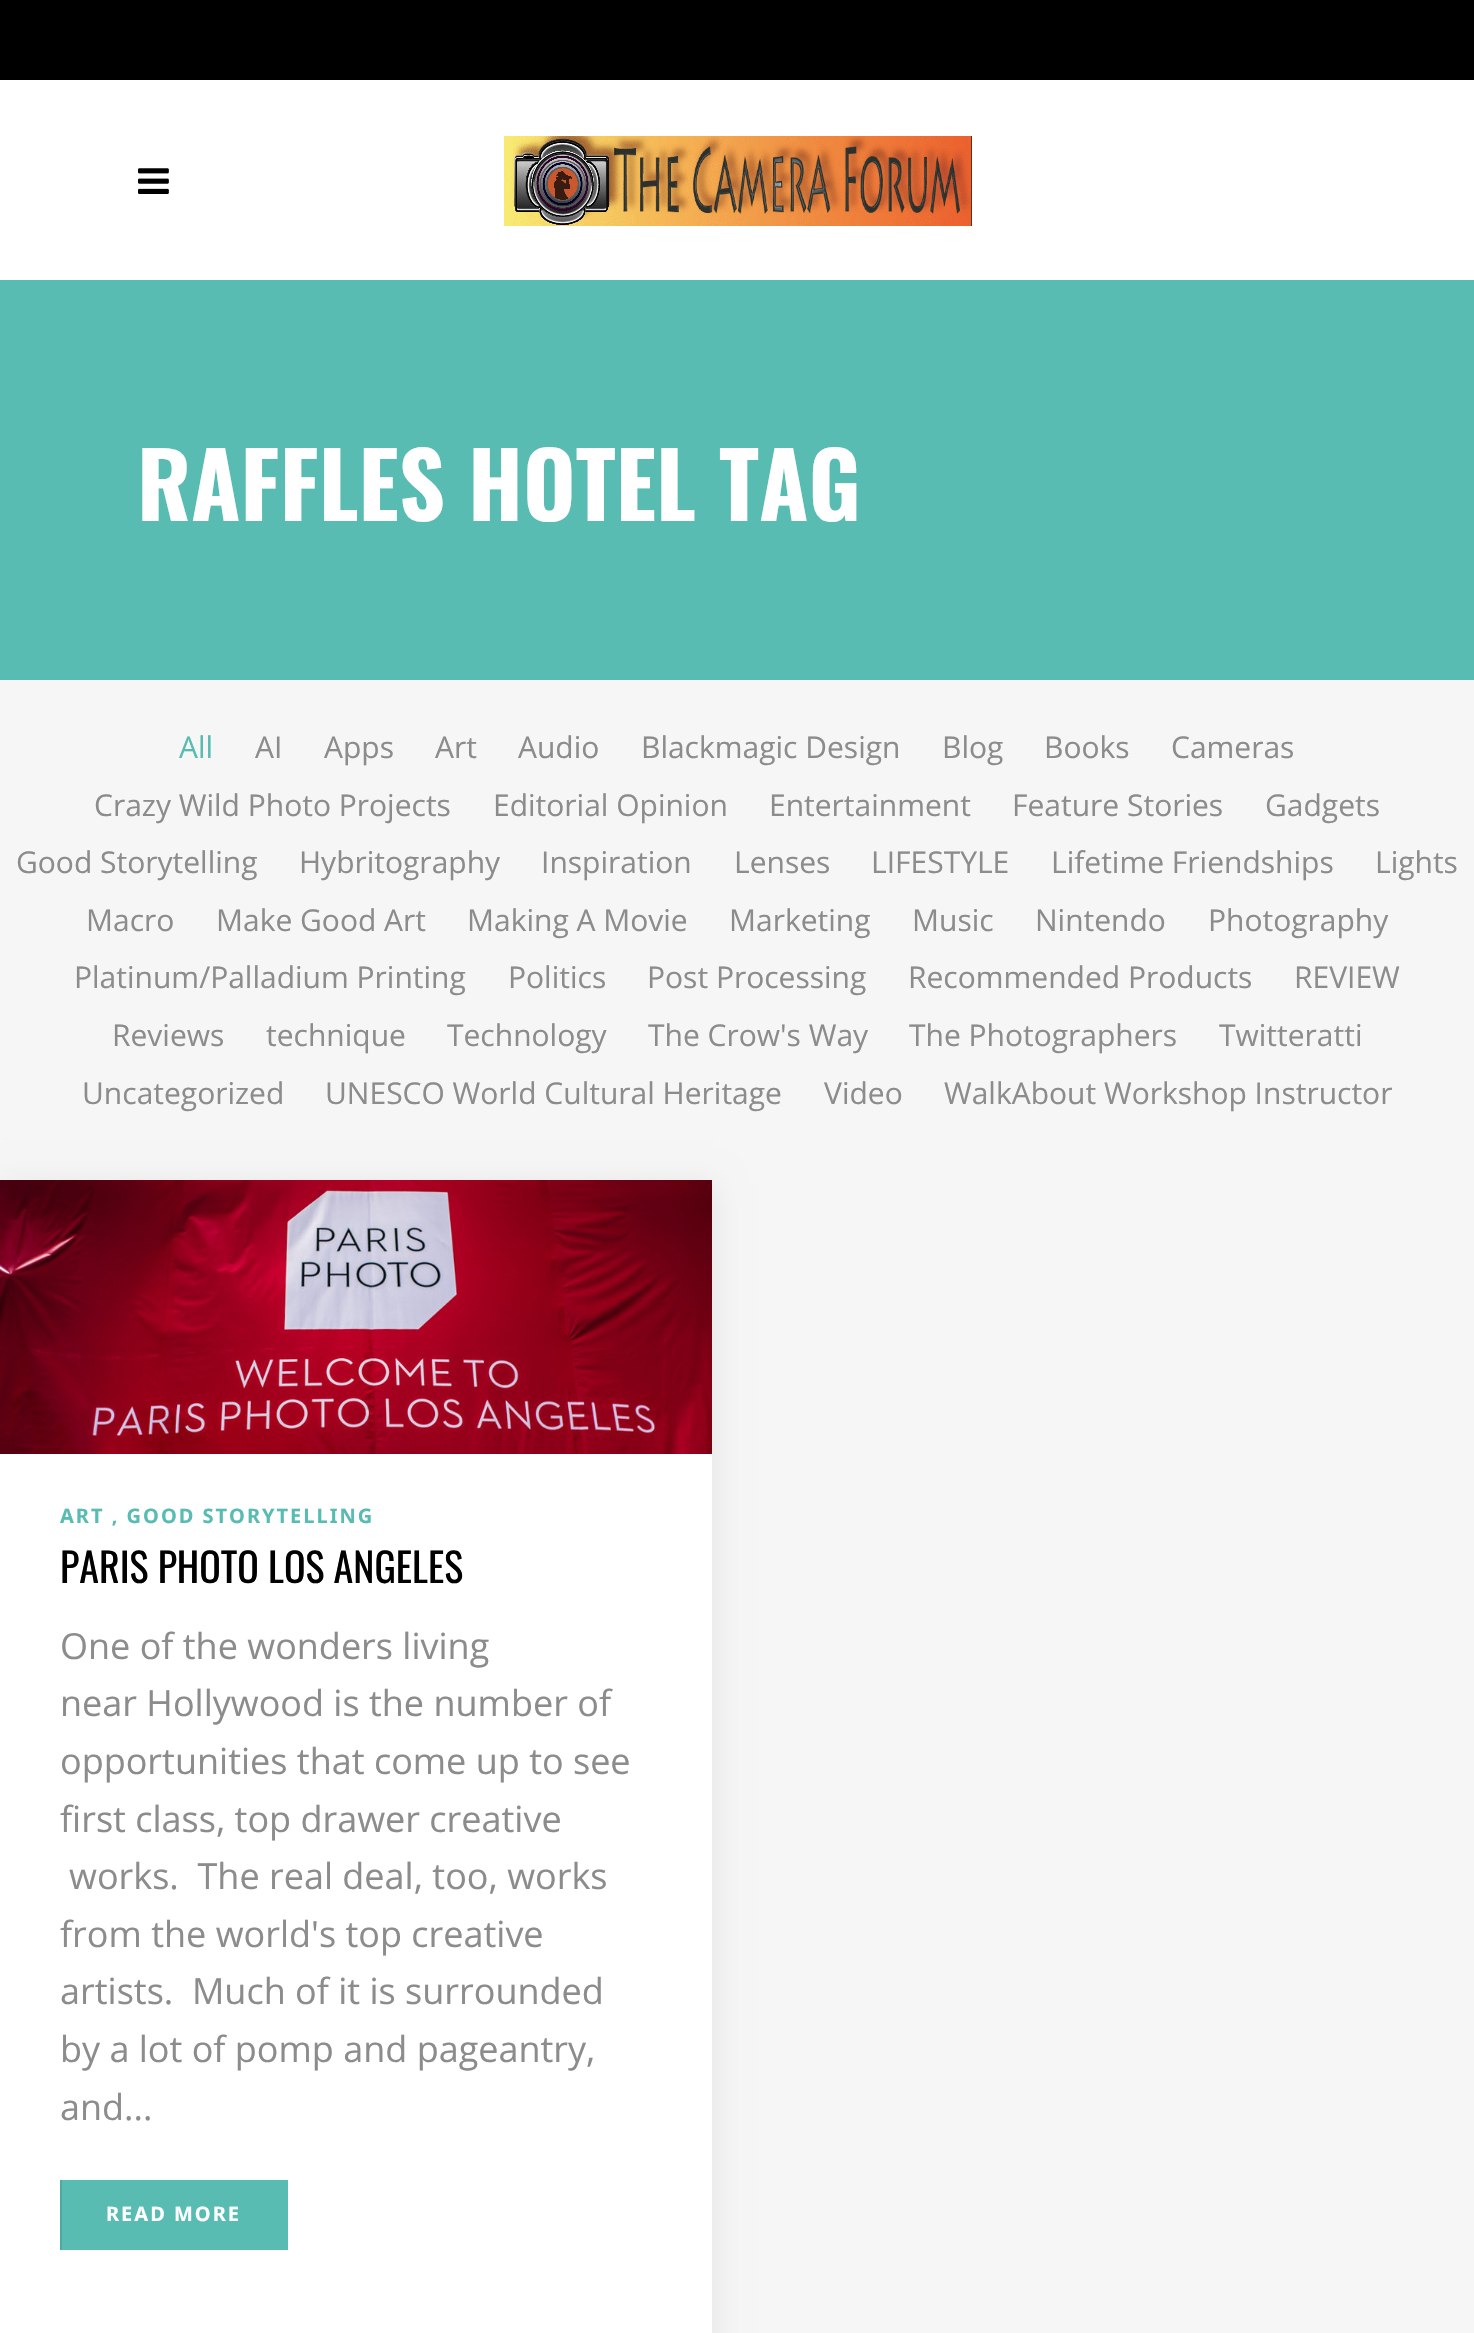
void draw(SkCanvas* canvas) {
    SkPaint paint;
    paint.setAntiAlias(true);
    auto spacedText = [&](const char* s, float x, float y, const SkFont& font, const SkPaint& ink, float letter, float word) {
        std::vector<SkGlyphID> glyphs(font.countText(s, strlen(s), SkTextEncoding::kUTF8));
        std::vector<float> xs(glyphs.size());
        font.textToGlyphs(s, strlen(s), SkTextEncoding::kUTF8, glyphs);
        font.getXPos(glyphs, xs, x);
        float extra = 0;
        for (size_t i = 0; i < glyphs.size(); i++) {
            xs[i] += extra;
            extra += letter + word * (glyphs[i] == font.unicharToGlyph(' '));
        }
        canvas->drawTextBlob(SkTextBlob::MakeFromPosHGlyphs(glyphs, xs, y, font), 0, 0, ink);
    };
    canvas->clear(0xFFF6F6F6);
    paint.setColor(0xFF000000);
    canvas->drawRect(SkRect::MakeXYWH(0, 0, 1474, 80), paint);
    paint.setColor(0xFFFFFFFF);
    canvas->drawRect(SkRect::MakeXYWH(0, 80, 1474, 200), paint);
    canvas->drawImageRect(SkImages::DeferredFromEncodedData(SkData::MakeFromFileName("img1.png")), SkRect::MakeXYWH(138, 168, 31, 26), SkSamplingOptions());
    canvas->drawImageRect(SkImages::DeferredFromEncodedData(SkData::MakeFromFileName("img2.png")), SkRect::MakeXYWH(504, 136, 468, 90), SkSamplingOptions());
    paint.setColor(0xFF58BCB3);
    canvas->drawRect(SkRect::MakeXYWH(0, 280, 1474, 400), paint);
    SkFont font1(fontMgr->matchFamilyStyle("Oswald", SkFontStyle::Bold()), 90);
    font1.setSubpixel(true);
    paint.setColor(0xFFFFFFFF);
    canvas->drawString("RAFFLES HOTEL TAG", 137, 521, font1, paint);
    SkFont font2(fontMgr->matchFamilyStyle("Open Sans", SkFontStyle::Normal()), 30);
    font2.setSubpixel(true);
    paint.setColor(0xFF58BCB3);
    canvas->drawString("All", 179, 758, font2, paint);
    paint.setColor(0xFF8D8C8C);
    canvas->drawString("AI", 255, 758, font2, paint);
    canvas->drawString("Apps", 324, 758, font2, paint);
    canvas->drawString("Art", 435, 758, font2, paint);
    canvas->drawString("Audio", 518, 758, font2, paint);
    canvas->drawString("Blackmagic Design", 641, 758, font2, paint);
    canvas->drawString("Blog", 942, 758, font2, paint);
    canvas->drawString("Books", 1044, 758, font2, paint);
    canvas->drawString("Cameras", 1171, 758, font2, paint);
    canvas->drawString("Crazy Wild Photo Projects", 94, 816, font2, paint);
    canvas->drawString("Editorial Opinion", 493, 816, font2, paint);
    canvas->drawString("Entertainment", 769, 816, font2, paint);
    canvas->drawString("Feature Stories", 1012, 816, font2, paint);
    canvas->drawString("Gadgets", 1265, 816, font2, paint);
    canvas->drawString("Good Storytelling", 16, 873, font2, paint);
    canvas->drawString("Hybritography", 299, 873, font2, paint);
    canvas->drawString("Inspiration", 541, 873, font2, paint);
    canvas->drawString("Lenses", 734, 873, font2, paint);
    canvas->drawString("LIFESTYLE", 871, 873, font2, paint);
    canvas->drawString("Lifetime Friendships", 1051, 873, font2, paint);
    canvas->drawString("Lights", 1375, 873, font2, paint);
    canvas->drawString("Macro", 86, 931, font2, paint);
    canvas->drawString("Make Good Art", 216, 931, font2, paint);
    canvas->drawString("Making A Movie", 467, 931, font2, paint);
    canvas->drawString("Marketing", 729, 931, font2, paint);
    canvas->drawString("Music", 912, 931, font2, paint);
    canvas->drawString("Nintendo", 1035, 931, font2, paint);
    canvas->drawString("Photography", 1208, 931, font2, paint);
    canvas->drawString("Platinum/Palladium Printing", 74, 988, font2, paint);
    canvas->drawString("Politics", 508, 988, font2, paint);
    canvas->drawString("Post Processing", 647, 988, font2, paint);
    canvas->drawString("Recommended Products", 908, 988, font2, paint);
    canvas->drawString("REVIEW", 1294, 988, font2, paint);
    canvas->drawString("Reviews", 112, 1046, font2, paint);
    canvas->drawString("technique", 266, 1046, font2, paint);
    canvas->drawString("Technology", 447, 1046, font2, paint);
    canvas->drawString("The Crow's Way", 648, 1046, font2, paint);
    canvas->drawString("The Photographers", 909, 1046, font2, paint);
    canvas->drawString("Twitteratti", 1219, 1046, font2, paint);
    canvas->drawString("Uncategorized", 82, 1104, font2, paint);
    canvas->drawString("UNESCO World Cultural Heritage", 325, 1104, font2, paint);
    canvas->drawString("Video", 824, 1104, font2, paint);
    canvas->drawString("WalkAbout Workshop Instructor", 944, 1104, font2, paint);
    paint.setColor(0xFFE5E5E5);
    paint.setMaskFilter(SkMaskFilter::MakeBlur(kNormal_SkBlurStyle, 15));
    canvas->drawRect(SkRect::MakeXYWH(2, 1184, 712, 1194), paint);
    paint.setMaskFilter(nullptr);
    paint.setColor(0xFFFFFFFF);
    canvas->drawRect(SkRect::MakeXYWH(0, 1454, 712, 879), paint);
    canvas->drawImageRect(SkImages::DeferredFromEncodedData(SkData::MakeFromFileName("img3.png")), SkRect::MakeXYWH(0, 1180, 712, 274), SkSamplingOptions());
    SkFont font3(fontMgr->matchFamilyStyle("Noto Sans", SkFontStyle::Bold()), 20);
    font3.setSubpixel(true);
    paint.setColor(0xFF58BCB3);
    spacedText("ART , GOOD STORYTELLING", 60, 1523, font3, paint, 2, 0);
    SkFont font4(fontMgr->matchFamilyStyle("Oswald", SkFontStyle::Normal()), 40);
    font4.setSubpixel(true);
    paint.setColor(0xFF000000);
    canvas->drawString("PARIS PHOTO LOS ANGELES", 60, 1583, font4, paint);
    SkFont font5(fontMgr->matchFamilyStyle("Open Sans", SkFontStyle::Normal()), 36);
    font5.setSubpixel(true);
    paint.setColor(0xFF8D8C8C);
    canvas->drawString("One of the wonders living", 60, 1659, font5, paint);
    canvas->drawString("near Hollywood is the number of", 60, 1716, font5, paint);
    canvas->drawString("opportunities that come up to see", 60, 1774, font5, paint);
    canvas->drawString("first class, top drawer creative", 60, 1832, font5, paint);
    canvas->drawString("works.  The real deal, too, works", 69, 1889, font5, paint);
    canvas->drawString("from the world's top creative", 60, 1947, font5, paint);
    canvas->drawString("artists.  Much of it is surrounded", 60, 2004, font5, paint);
    canvas->drawString("by a lot of pomp and pageantry,", 60, 2062, font5, paint);
    canvas->drawString("and...", 60, 2120, font5, paint);
    paint.setColor(0xFF58BCB3);
    canvas->drawRect(SkRect::MakeXYWH(62, 2180, 226, 70), paint);
    paint.setColor(0xFF4FA9A1);
    canvas->drawRect(SkRect::MakeXYWH(60, 2180, 2, 70), paint);
    paint.setColor(0xFFFFFFFF);
    spacedText("READ MORE", 106, 2221, font3, paint, 2, 0);
}
